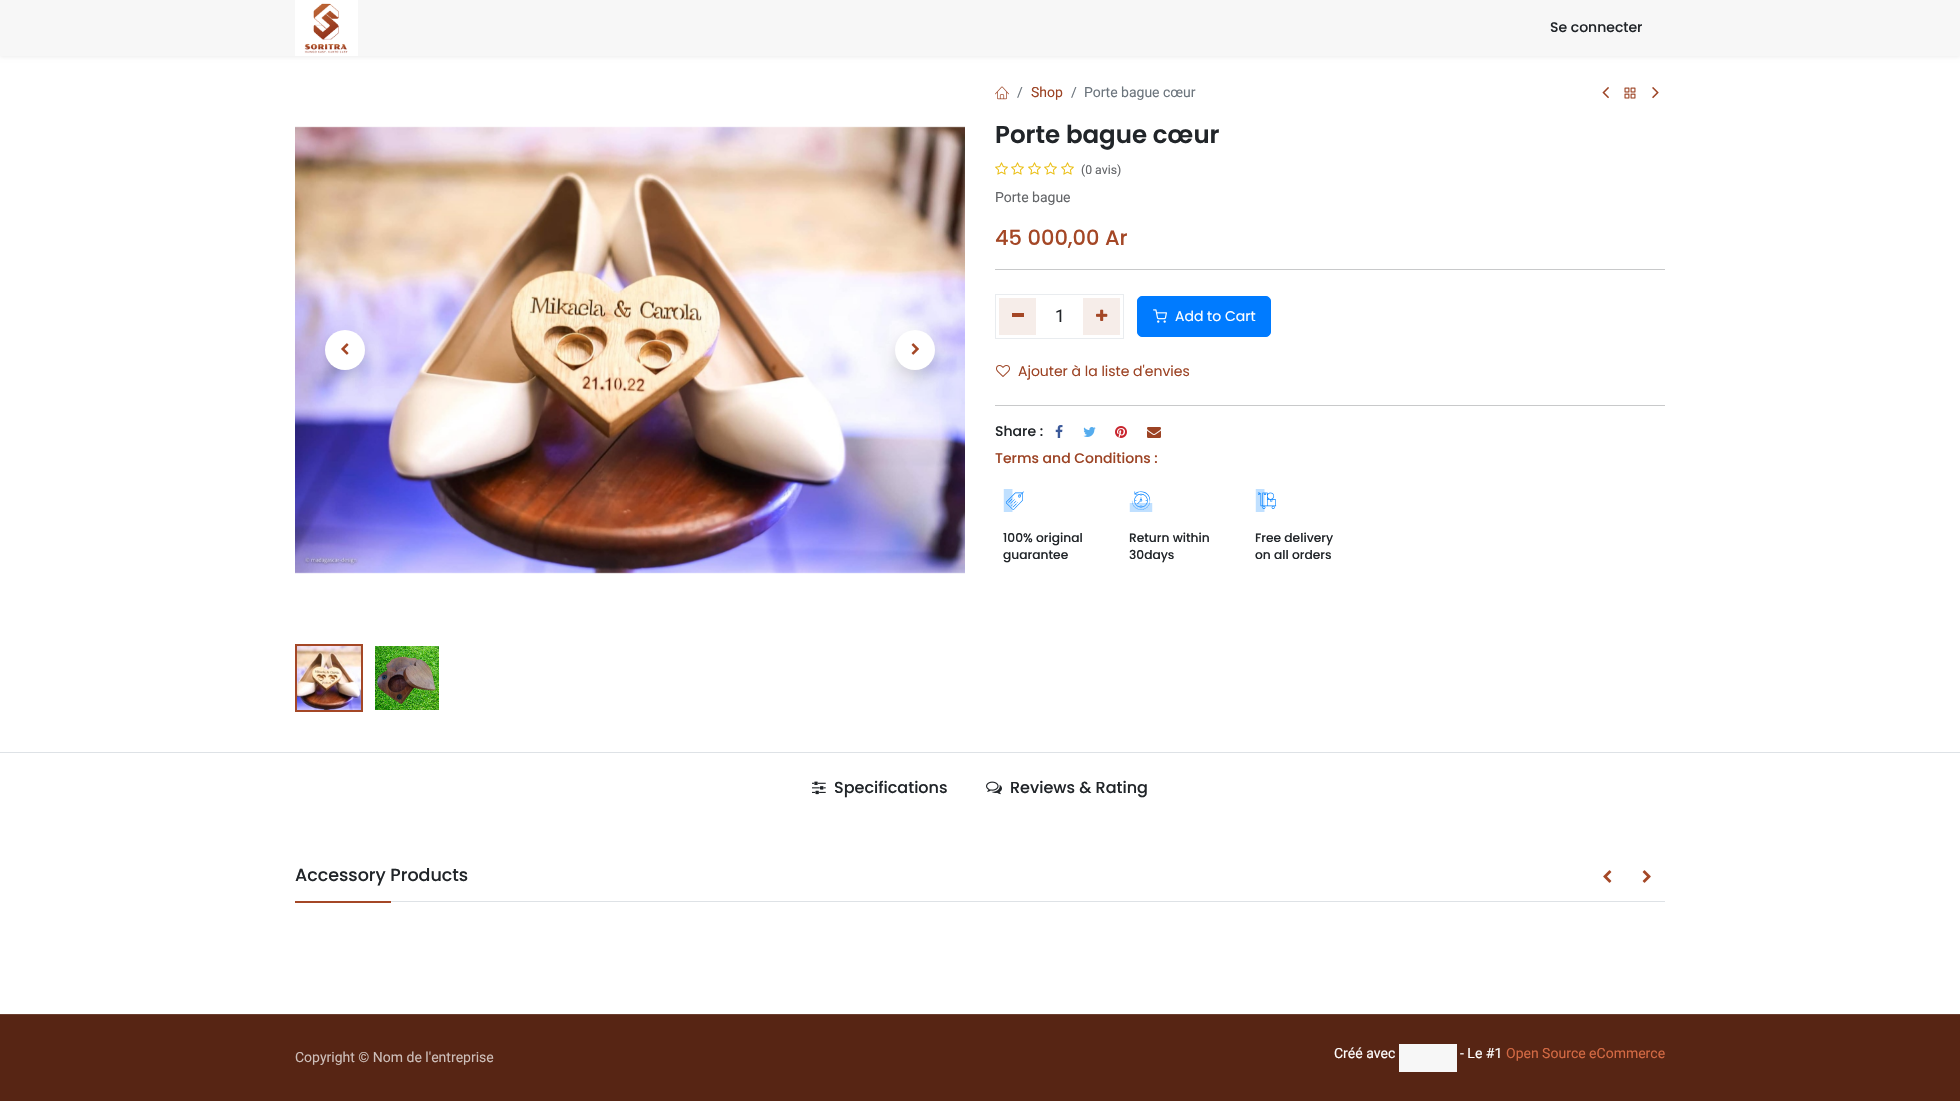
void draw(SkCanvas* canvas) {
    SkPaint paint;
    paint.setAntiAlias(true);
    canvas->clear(0xFFFFFFFF);
    paint.setColor(0x12000000);
    paint.setMaskFilter(SkMaskFilter::MakeBlur(kNormal_SkBlurStyle, 2));
    canvas->drawRect(SkRect::MakeXYWH(0, 1, 1960, 56), paint);
    paint.setMaskFilter(nullptr);
    paint.setColor(0xFFF7F7F7);
    canvas->drawRect(SkRect::MakeXYWH(0, 0, 1960, 56), paint);
    canvas->drawImageRect(SkImages::DeferredFromEncodedData(SkData::MakeFromFileName("img1.png")), SkRect::MakeXYWH(295, 0, 63, 56), SkSamplingOptions());
    SkFont font1(fontMgr->matchFamilyStyle("Poppins", SkFontStyle(500, SkFontStyle::kNormal_Width, SkFontStyle::kUpright_Slant)), 14);
    font1.setSubpixel(true);
    paint.setColor(0xFF212529);
    canvas->drawString("Se connecter", 1550, 32, font1, paint);
    canvas->drawImageRect(SkImages::DeferredFromEncodedData(SkData::MakeFromFileName("img2.png")), SkRect::MakeXYWH(295, 126, 670, 448), SkSamplingOptions());
    paint.setColor(0x26000000);
    paint.setMaskFilter(SkMaskFilter::MakeBlur(kNormal_SkBlurStyle, 8));
    canvas->drawRoundRect(SkRect::MakeXYWH(325, 338, 40, 40), 20, 20, paint);
    paint.setMaskFilter(nullptr);
    paint.setColor(0xFFFFFFFF);
    canvas->drawCircle(345, 350, 20, paint);
    canvas->drawImageRect(SkImages::DeferredFromEncodedData(SkData::MakeFromFileName("img3.png")), SkRect::MakeXYWH(341, 343, 8, 12), SkSamplingOptions());
    paint.setColor(0x26000000);
    paint.setMaskFilter(SkMaskFilter::MakeBlur(kNormal_SkBlurStyle, 8));
    canvas->drawRoundRect(SkRect::MakeXYWH(895, 338, 40, 40), 20, 20, paint);
    paint.setMaskFilter(nullptr);
    paint.setColor(0xFFFFFFFF);
    canvas->drawCircle(915, 350, 20, paint);
    canvas->drawImageRect(SkImages::DeferredFromEncodedData(SkData::MakeFromFileName("img4.png")), SkRect::MakeXYWH(911, 343, 8, 12), SkSamplingOptions());
    paint.setStyle(SkPaint::kStroke_Style);
    paint.setStrokeWidth(2);
    paint.setColor(0xFFA44726);
    canvas->drawRect(SkRect::MakeXYWH(296, 645, 66, 66), paint);
    canvas->drawImageRect(SkImages::DeferredFromEncodedData(SkData::MakeFromFileName("img5.png")), SkRect::MakeXYWH(297, 646, 64, 64), SkSamplingOptions());
    canvas->drawImageRect(SkImages::DeferredFromEncodedData(SkData::MakeFromFileName("img6.png")), SkRect::MakeXYWH(375, 646, 64, 64), SkSamplingOptions());
    canvas->drawImageRect(SkImages::DeferredFromEncodedData(SkData::MakeFromFileName("img7.png")), SkRect::MakeXYWH(995, 86, 14, 14), SkSamplingOptions());
    SkFont font2(fontMgr->matchFamilyStyle("Roboto", SkFontStyle::Normal()), 14);
    font2.setSubpixel(true);
    paint.setStyle(SkPaint::kFill_Style);
    paint.setColor(0xFF6C757D);
    canvas->drawString("/", 1017, 97, font2, paint);
    paint.setColor(0xFF9C4324);
    canvas->drawString("Shop", 1031, 97, font2, paint);
    paint.setColor(0xFF6C757D);
    canvas->drawString("/", 1071, 97, font2, paint);
    canvas->drawString("Porte bague cœur", 1084, 97, font2, paint);
    canvas->drawImageRect(SkImages::DeferredFromEncodedData(SkData::MakeFromFileName("img8.png")), SkRect::MakeXYWH(1602, 87, 7, 12), SkSamplingOptions());
    canvas->drawImageRect(SkImages::DeferredFromEncodedData(SkData::MakeFromFileName("img9.png")), SkRect::MakeXYWH(1624, 87, 12, 12), SkSamplingOptions());
    canvas->drawImageRect(SkImages::DeferredFromEncodedData(SkData::MakeFromFileName("img10.png")), SkRect::MakeXYWH(1652, 87, 7, 12), SkSamplingOptions());
    SkFont font3(fontMgr->matchFamilyStyle("Poppins", SkFontStyle(600, SkFontStyle::kNormal_Width, SkFontStyle::kUpright_Slant)), 24.5f);
    font3.setSubpixel(true);
    paint.setColor(0xFF212529);
    canvas->drawString("Porte bague cœur", 995, 143, font3, paint);
    canvas->drawImageRect(SkImages::DeferredFromEncodedData(SkData::MakeFromFileName("img11.png")), SkRect::MakeXYWH(995, 162, 13, 13), SkSamplingOptions());
    canvas->drawImageRect(SkImages::DeferredFromEncodedData(SkData::MakeFromFileName("img11.png")), SkRect::MakeXYWH(1011, 162, 13, 13), SkSamplingOptions());
    canvas->drawImageRect(SkImages::DeferredFromEncodedData(SkData::MakeFromFileName("img11.png")), SkRect::MakeXYWH(1028, 162, 13, 13), SkSamplingOptions());
    canvas->drawImageRect(SkImages::DeferredFromEncodedData(SkData::MakeFromFileName("img11.png")), SkRect::MakeXYWH(1044, 162, 13, 13), SkSamplingOptions());
    canvas->drawImageRect(SkImages::DeferredFromEncodedData(SkData::MakeFromFileName("img11.png")), SkRect::MakeXYWH(1061, 162, 13, 13), SkSamplingOptions());
    SkFont font4(fontMgr->matchFamilyStyle("Roboto", SkFontStyle::Normal()), 12.25f);
    font4.setSubpixel(true);
    paint.setColor(0xFF646669);
    canvas->drawString("(0 avis)", 1081, 174, font4, paint);
    canvas->drawString("Porte bague", 995, 202, font2, paint);
    SkFont font5(fontMgr->matchFamilyStyle("Poppins", SkFontStyle(500, SkFontStyle::kNormal_Width, SkFontStyle::kUpright_Slant)), 21);
    font5.setSubpixel(true);
    paint.setColor(0xFFA44726);
    canvas->drawString("45 000,00 Ar", 995, 245, font5, paint);
    paint.setColor(0xFFC8C9CA);
    canvas->drawRect(SkRect::MakeXYWH(995, 269, 670, 1), paint);
    paint.setStyle(SkPaint::kStroke_Style);
    paint.setStrokeWidth(1);
    paint.setColor(0xFFE9ECEF);
    canvas->drawRect(SkRect::MakeXYWH(995.5f, 294.5f, 128, 44), paint);
    paint.setStyle(SkPaint::kFill_Style);
    paint.setColor(0xFFF6EDE9);
    canvas->drawRect(SkRect::MakeXYWH(999, 298, 37, 37), paint);
    paint.setColor(0xFFA44726);
    canvas->drawRect(SkRect::MakeXYWH(1012, 313, 12, 4), paint);
    SkFont font6(fontMgr->matchFamilyStyle("Roboto", SkFontStyle::Normal()), 17.5f);
    font6.setSubpixel(true);
    paint.setColor(0xFF212529);
    canvas->drawString("1", 1055, 322, font6, paint);
    paint.setColor(0xFFF6EDE9);
    canvas->drawRect(SkRect::MakeXYWH(1083, 298, 37, 37), paint);
    canvas->drawImageRect(SkImages::DeferredFromEncodedData(SkData::MakeFromFileName("img12.png")), SkRect::MakeXYWH(1096, 309, 12, 12), SkSamplingOptions());
    paint.setColor(0xFF007BFF);
    canvas->drawRoundRect(SkRect::MakeXYWH(1137.5f, 296.5f, 133, 40), 4.5f, 4.5f, paint);
    paint.setStyle(SkPaint::kStroke_Style);
    canvas->drawRoundRect(SkRect::MakeXYWH(1137.5f, 296.5f, 133, 40), 4.5f, 4.5f, paint);
    canvas->drawImageRect(SkImages::DeferredFromEncodedData(SkData::MakeFromFileName("img13.png")), SkRect::MakeXYWH(1153, 309, 14, 14), SkSamplingOptions());
    SkFont font7(fontMgr->matchFamilyStyle("Poppins", SkFontStyle::Normal()), 14);
    font7.setSubpixel(true);
    paint.setStyle(SkPaint::kFill_Style);
    paint.setColor(0xFFFFFFFF);
    canvas->drawString("Add to Cart", 1175, 321, font7, paint);
    canvas->drawImageRect(SkImages::DeferredFromEncodedData(SkData::MakeFromFileName("img14.png")), SkRect::MakeXYWH(996, 365, 14, 12), SkSamplingOptions());
    paint.setColor(0xFF9C4324);
    canvas->drawString("Ajouter à la liste d'envies", 1018, 376, font7, paint);
    paint.setColor(0xFFC8C9CA);
    canvas->drawRect(SkRect::MakeXYWH(995, 405, 670, 1), paint);
    paint.setColor(0xFF212529);
    canvas->drawString("Share :", 995, 436, font1, paint);
    canvas->drawImageRect(SkImages::DeferredFromEncodedData(SkData::MakeFromFileName("img15.png")), SkRect::MakeXYWH(1055, 425, 8, 13), SkSamplingOptions());
    canvas->drawImageRect(SkImages::DeferredFromEncodedData(SkData::MakeFromFileName("img16.png")), SkRect::MakeXYWH(1083, 427, 13, 10), SkSamplingOptions());
    canvas->drawImageRect(SkImages::DeferredFromEncodedData(SkData::MakeFromFileName("img17.png")), SkRect::MakeXYWH(1115, 426, 12, 12), SkSamplingOptions());
    canvas->drawImageRect(SkImages::DeferredFromEncodedData(SkData::MakeFromFileName("img18.png")), SkRect::MakeXYWH(1147, 427, 14, 11), SkSamplingOptions());
    paint.setColor(0xFF9C4324);
    canvas->drawString("Terms and Conditions :", 995, 463, font1, paint);
    canvas->drawImageRect(SkImages::DeferredFromEncodedData(SkData::MakeFromFileName("img19.png")), SkRect::MakeXYWH(1003, 489, 21, 23), SkSamplingOptions());
    SkFont font8(fontMgr->matchFamilyStyle("Poppins", SkFontStyle(500, SkFontStyle::kNormal_Width, SkFontStyle::kUpright_Slant)), 12.25f);
    font8.setSubpixel(true);
    paint.setColor(0xFF212529);
    canvas->drawString("100% original", 1003, 542, font8, paint);
    canvas->drawString("guarantee", 1003, 559, font8, paint);
    canvas->drawImageRect(SkImages::DeferredFromEncodedData(SkData::MakeFromFileName("img20.png")), SkRect::MakeXYWH(1129, 491, 24, 21), SkSamplingOptions());
    canvas->drawString("Return within", 1129, 542, font8, paint);
    canvas->drawString("30days", 1129, 559, font8, paint);
    canvas->drawImageRect(SkImages::DeferredFromEncodedData(SkData::MakeFromFileName("img21.png")), SkRect::MakeXYWH(1255, 489, 22, 23), SkSamplingOptions());
    canvas->drawString("Free delivery", 1255, 542, font8, paint);
    canvas->drawString("on all orders", 1255, 559, font8, paint);
    paint.setColor(0xFFDEE2E6);
    canvas->drawRect(SkRect::MakeXYWH(0, 752, 1960, 1), paint);
    canvas->drawImageRect(SkImages::DeferredFromEncodedData(SkData::MakeFromFileName("img22.png")), SkRect::MakeXYWH(812, 781, 14, 14), SkSamplingOptions());
    SkFont font9(fontMgr->matchFamilyStyle("Poppins", SkFontStyle(500, SkFontStyle::kNormal_Width, SkFontStyle::kUpright_Slant)), 16);
    font9.setSubpixel(true);
    paint.setColor(0xFF212529);
    canvas->drawString("Specifications", 834, 793, font9, paint);
    canvas->drawImageRect(SkImages::DeferredFromEncodedData(SkData::MakeFromFileName("img23.png")), SkRect::MakeXYWH(986, 781, 16, 14), SkSamplingOptions());
    canvas->drawString("Reviews & Rating", 1010, 793, font9, paint);
    paint.setColor(0xFFDEE2E6);
    canvas->drawRect(SkRect::MakeXYWH(391, 901, 1274, 1), paint);
    SkFont font10(fontMgr->matchFamilyStyle("Poppins", SkFontStyle(500, SkFontStyle::kNormal_Width, SkFontStyle::kUpright_Slant)), 17.5f);
    font10.setSubpixel(true);
    paint.setColor(0xFF212529);
    canvas->drawString("Accessory Products", 295, 881, font10, paint);
    paint.setColor(0xFFA44726);
    canvas->drawRect(SkRect::MakeXYWH(295, 901, 96, 2), paint);
    canvas->drawImageRect(SkImages::DeferredFromEncodedData(SkData::MakeFromFileName("img24.png")), SkRect::MakeXYWH(1603, 870, 9, 13), SkSamplingOptions());
    canvas->drawImageRect(SkImages::DeferredFromEncodedData(SkData::MakeFromFileName("img25.png")), SkRect::MakeXYWH(1642, 870, 9, 13), SkSamplingOptions());
    paint.setColor(0xFF572514);
    canvas->drawRect(SkRect::MakeXYWH(0, 1015, 1960, 86), paint);
    paint.setColor(0xFF6B3F30);
    canvas->drawRect(SkRect::MakeXYWH(0, 1014, 1960, 1), paint);
    paint.setColor(0xFFCDBEB9);
    canvas->drawString("Copyright © Nom de l'entreprise", 295, 1062, font2, paint);
    paint.setColor(0xFFFFFFFF);
    canvas->drawString("Créé avec", 1334, 1058, font2, paint);
    paint.setColor(0xFFF7F7F7);
    canvas->drawRect(SkRect::MakeXYWH(1399, 1044, 58, 28), paint);
    paint.setColor(0xFFFFFFFF);
    canvas->drawString("- Le #1", 1460, 1058, font2, paint);
    paint.setColor(0xFFD36943);
    canvas->drawString("Open Source eCommerce", 1506, 1058, font2, paint);
}
